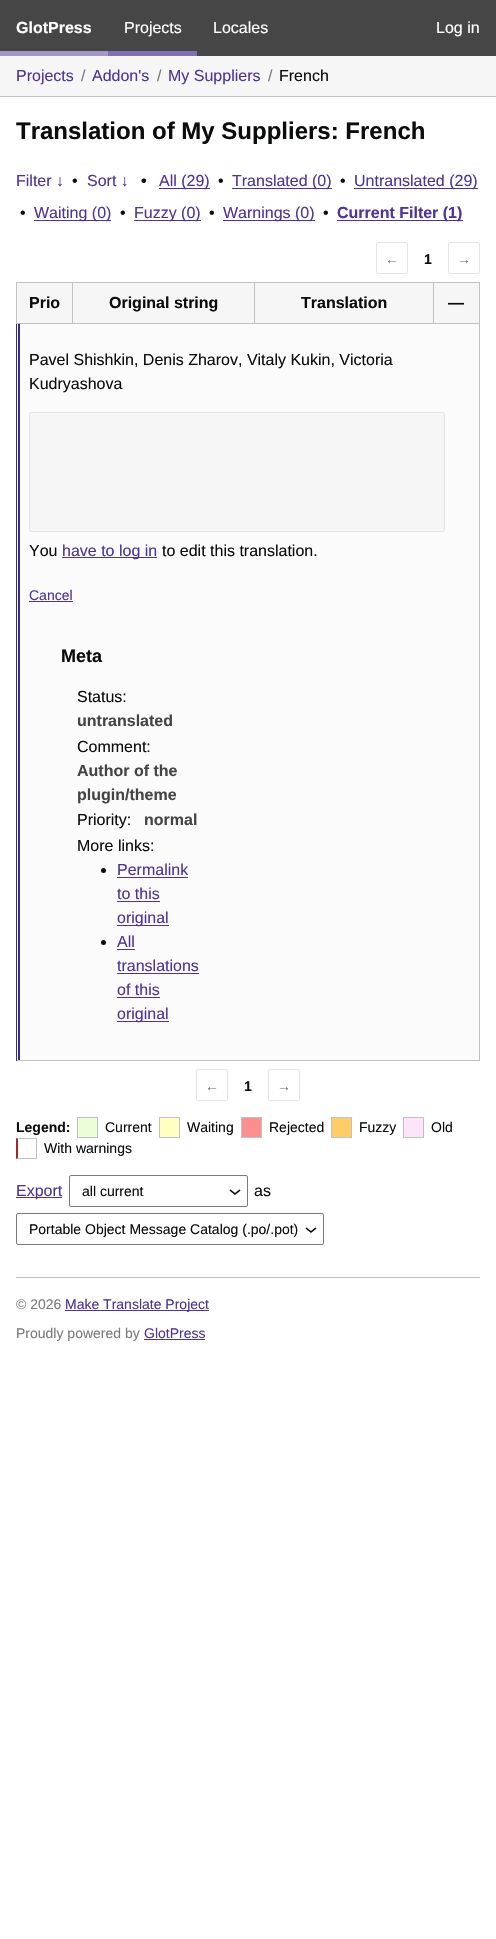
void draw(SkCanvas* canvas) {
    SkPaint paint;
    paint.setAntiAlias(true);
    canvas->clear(0xFFFFFFFF);
    paint.setColor(0xFF464646);
    canvas->drawRect(SkRect::MakeXYWH(0, 0, 496, 56), paint);
    paint.setColor(0xFFA597C9);
    canvas->drawRect(SkRect::MakeXYWH(0, 51, 108, 5), paint);
    SkFont font1(fontMgr->matchFamilyStyle("Liberation Sans", SkFontStyle::Bold()), 16);
    font1.setSubpixel(true);
    paint.setColor(0xFFFFFFFF);
    canvas->drawString("GlotPress", 16, 33, font1, paint);
    paint.setColor(0xFF826EB4);
    canvas->drawRect(SkRect::MakeXYWH(108, 51, 89, 5), paint);
    SkFont font2(fontMgr->matchFamilyStyle("Liberation Sans", SkFontStyle::Normal()), 16);
    font2.setSubpixel(true);
    paint.setColor(0xFFFFFFFF);
    canvas->drawString("Projects", 124, 33, font2, paint);
    canvas->drawString("Locales", 213, 33, font2, paint);
    canvas->drawString("Log in", 436, 33, font2, paint);
    paint.setColor(0xFFF6F6F6);
    canvas->drawRect(SkRect::MakeXYWH(0, 56, 496, 40), paint);
    paint.setColor(0xFFC1C1C1);
    canvas->drawRect(SkRect::MakeXYWH(0, 96, 496, 1), paint);
    paint.setColor(0xFF4E3499);
    canvas->drawString("Projects", 16, 81, font2, paint);
    paint.setColor(0xFF7A7A7A);
    canvas->drawString("/", 81, 81, font2, paint);
    paint.setColor(0xFF4E3499);
    canvas->drawString("Addon's", 92, 81, font2, paint);
    paint.setColor(0xFF7A7A7A);
    canvas->drawString("/", 157, 81, font2, paint);
    paint.setColor(0xFF4E3499);
    canvas->drawString("My Suppliers", 168, 81, font2, paint);
    paint.setColor(0xFF7A7A7A);
    canvas->drawString("/", 268, 81, font2, paint);
    paint.setColor(0xFF0B0C0C);
    canvas->drawString("French", 279, 81, font2, paint);
    SkFont font3(fontMgr->matchFamilyStyle("Liberation Sans", SkFontStyle::Bold()), 24);
    font3.setSubpixel(true);
    canvas->drawString("Translation of My Suppliers: French", 16, 139, font3, paint);
    paint.setColor(0xFF4E3499);
    canvas->drawString("Filter ↓", 16, 186, font2, paint);
    paint.setColor(0xFF0B0C0C);
    canvas->drawString("•", 72, 186, font2, paint);
    paint.setColor(0xFF4E3499);
    canvas->drawString("Sort ↓", 87, 186, font2, paint);
    paint.setColor(0xFF0B0C0C);
    canvas->drawString("•", 141, 186, font1, paint);
    paint.setColor(0xFF4E3499);
    canvas->drawRect(SkRect::MakeXYWH(159, 188, 51, 1), paint);
    canvas->drawString("All (29)", 159, 186, font2, paint);
    paint.setColor(0xFF0B0C0C);
    canvas->drawString("•", 218, 186, font2, paint);
    paint.setColor(0xFF4E3499);
    canvas->drawRect(SkRect::MakeXYWH(232, 188, 100, 1), paint);
    canvas->drawString("Translated (0)", 232, 186, font2, paint);
    paint.setColor(0xFF0B0C0C);
    canvas->drawString("•", 340, 186, font2, paint);
    paint.setColor(0xFF4E3499);
    canvas->drawRect(SkRect::MakeXYWH(354, 188, 124, 1), paint);
    canvas->drawString("Untranslated (29)", 354, 186, font2, paint);
    paint.setColor(0xFF0B0C0C);
    canvas->drawString("•", 20, 218, font2, paint);
    paint.setColor(0xFF4E3499);
    canvas->drawRect(SkRect::MakeXYWH(34, 220, 77, 1), paint);
    canvas->drawString("Waiting (0)", 34, 218, font2, paint);
    paint.setColor(0xFF0B0C0C);
    canvas->drawString("•", 120, 218, font2, paint);
    paint.setColor(0xFF4E3499);
    canvas->drawRect(SkRect::MakeXYWH(134, 220, 67, 1), paint);
    canvas->drawString("Fuzzy (0)", 134, 218, font2, paint);
    paint.setColor(0xFF0B0C0C);
    canvas->drawString("•", 209, 218, font2, paint);
    paint.setColor(0xFF4E3499);
    canvas->drawRect(SkRect::MakeXYWH(223, 220, 92, 1), paint);
    canvas->drawString("Warnings (0)", 223, 218, font2, paint);
    paint.setColor(0xFF0B0C0C);
    canvas->drawString("•", 323, 218, font2, paint);
    paint.setColor(0xFF4E3499);
    canvas->drawRect(SkRect::MakeXYWH(337, 220, 126, 1), paint);
    canvas->drawString("Current Filter (1)", 337, 218, font1, paint);
    paint.setStyle(SkPaint::kStroke_Style);
    paint.setStrokeWidth(1);
    paint.setColor(0xFFE4E4E4);
    canvas->drawRoundRect(SkRect::MakeXYWH(376.5f, 242.5f, 31, 31), 1.5f, 1.5f, paint);
    SkFont font4(fontMgr->matchFamilyStyle("Liberation Sans", SkFontStyle::Normal()), 14);
    font4.setSubpixel(true);
    paint.setStyle(SkPaint::kFill_Style);
    paint.setColor(0xFF7A7A7A);
    canvas->drawString("←", 385, 264, font4, paint);
    SkFont font5(fontMgr->matchFamilyStyle("Liberation Sans", SkFontStyle::Bold()), 14);
    font5.setSubpixel(true);
    paint.setColor(0xFF0B0C0C);
    canvas->drawString("1", 424, 264, font5, paint);
    paint.setStyle(SkPaint::kStroke_Style);
    paint.setColor(0xFFE4E4E4);
    canvas->drawRoundRect(SkRect::MakeXYWH(448.5f, 242.5f, 31, 31), 1.5f, 1.5f, paint);
    paint.setStyle(SkPaint::kFill_Style);
    paint.setColor(0xFF7A7A7A);
    canvas->drawString("→", 457, 264, font4, paint);
    paint.setColor(0xFFC1C1C1);
    canvas->drawRect(SkRect::MakeXYWH(16, 282, 464, 1), paint);
    canvas->drawRect(SkRect::MakeXYWH(479, 282, 1, 779), paint);
    canvas->drawRect(SkRect::MakeXYWH(16, 1060, 464, 1), paint);
    canvas->drawRect(SkRect::MakeXYWH(16, 282, 1, 41), paint);
    paint.setColor(0xFFF6F6F6);
    canvas->drawRect(SkRect::MakeXYWH(17, 283, 55, 40), paint);
    paint.setColor(0xFFC1C1C1);
    canvas->drawRect(SkRect::MakeXYWH(433, 323, 47, 1), paint);
    canvas->drawRect(SkRect::MakeXYWH(433, 282, 1, 42), paint);
    canvas->drawRect(SkRect::MakeXYWH(254, 323, 180, 1), paint);
    canvas->drawRect(SkRect::MakeXYWH(254, 282, 1, 42), paint);
    canvas->drawRect(SkRect::MakeXYWH(72, 323, 183, 1), paint);
    canvas->drawRect(SkRect::MakeXYWH(72, 282, 1, 42), paint);
    paint.setColor(0xFFFBFBFB);
    canvas->drawRect(SkRect::MakeXYWH(17, 324, 462, 736), paint);
    paint.setColor(0xFF39298B);
    canvas->drawRect(SkRect::MakeXYWH(18, 323, 2, 737), paint);
    canvas->drawRect(SkRect::MakeXYWH(16, 323, 1, 738), paint);
    paint.setColor(0xFFC1C1C1);
    canvas->drawRect(SkRect::MakeXYWH(16, 323, 57, 1), paint);
    paint.setColor(0xFF0B0C0C);
    canvas->drawString("Prio", 29, 308, font1, paint);
    paint.setColor(0xFFF6F6F6);
    canvas->drawRect(SkRect::MakeXYWH(73, 283, 181, 40), paint);
    paint.setColor(0xFF0B0C0C);
    canvas->drawString("Original string", 109, 308, font1, paint);
    paint.setColor(0xFFF6F6F6);
    canvas->drawRect(SkRect::MakeXYWH(255, 283, 178, 40), paint);
    paint.setColor(0xFF0B0C0C);
    canvas->drawString("Translation", 301, 308, font1, paint);
    paint.setColor(0xFFF6F6F6);
    canvas->drawRect(SkRect::MakeXYWH(434, 283, 45, 40), paint);
    paint.setColor(0xFF0B0C0C);
    canvas->drawString("—", 448, 308, font1, paint);
    canvas->drawString("Pavel Shishkin, Denis Zharov, Vitaly Kukin, Victoria", 29, 365, font2, paint);
    canvas->drawString("Kudryashova", 29, 389, font2, paint);
    paint.setColor(0xFFF6F6F6);
    canvas->drawRoundRect(SkRect::MakeXYWH(29.5f, 412.5f, 415, 119), 1.5f, 1.5f, paint);
    paint.setStyle(SkPaint::kStroke_Style);
    paint.setColor(0xFFE4E4E4);
    canvas->drawRoundRect(SkRect::MakeXYWH(29.5f, 412.5f, 415, 119), 1.5f, 1.5f, paint);
    paint.setStyle(SkPaint::kFill_Style);
    paint.setColor(0xFF0B0C0C);
    canvas->drawString("You", 29, 556, font2, paint);
    paint.setColor(0xFF4E3499);
    canvas->drawRect(SkRect::MakeXYWH(62, 557, 95, 1), paint);
    canvas->drawString("have to log in", 62, 556, font2, paint);
    paint.setColor(0xFF0B0C0C);
    canvas->drawString("to edit this translation.", 162, 556, font2, paint);
    paint.setColor(0xFF4E3499);
    canvas->drawString("Cancel", 29, 600, font4, paint);
    canvas->drawRect(SkRect::MakeXYWH(29, 601, 44, 1), paint);
    SkFont font6(fontMgr->matchFamilyStyle("Liberation Sans", SkFontStyle::Bold()), 18);
    font6.setSubpixel(true);
    paint.setColor(0xFF0B0C0C);
    canvas->drawString("Meta", 61, 662, font6, paint);
    canvas->drawString("Status:", 77, 702, font2, paint);
    paint.setColor(0xFF444444);
    canvas->drawString("untranslated", 77, 726, font1, paint);
    paint.setColor(0xFF0B0C0C);
    canvas->drawString("Comment:", 77, 752, font2, paint);
    paint.setColor(0xFF444444);
    canvas->drawString("Author of the", 77, 776, font1, paint);
    canvas->drawString("plugin/theme", 77, 800, font1, paint);
    paint.setColor(0xFF0B0C0C);
    canvas->drawString("Priority:", 77, 825, font2, paint);
    paint.setColor(0xFF444444);
    canvas->drawString("normal", 144, 825, font1, paint);
    paint.setColor(0xFF0B0C0C);
    canvas->drawString("More links:", 77, 851, font2, paint);
    canvas->drawCircle(103.5f, 870.5f, 2.5f, paint);
    paint.setColor(0xFF4E3499);
    canvas->drawString("Permalink", 117, 875, font2, paint);
    canvas->drawRect(SkRect::MakeXYWH(117, 877, 71, 1), paint);
    canvas->drawString("to this", 117, 899, font2, paint);
    canvas->drawRect(SkRect::MakeXYWH(117, 901, 43, 1), paint);
    canvas->drawRect(SkRect::MakeXYWH(117, 925, 52, 1), paint);
    canvas->drawString("original", 117, 923, font2, paint);
    paint.setColor(0xFF0B0C0C);
    canvas->drawCircle(103.5f, 942.5f, 2.5f, paint);
    paint.setColor(0xFF4E3499);
    canvas->drawString("All", 117, 947, font2, paint);
    canvas->drawRect(SkRect::MakeXYWH(117, 949, 18, 1), paint);
    canvas->drawString("translations", 117, 971, font2, paint);
    canvas->drawRect(SkRect::MakeXYWH(117, 973, 82, 1), paint);
    canvas->drawString("of this", 117, 995, font2, paint);
    canvas->drawRect(SkRect::MakeXYWH(117, 997, 43, 1), paint);
    canvas->drawRect(SkRect::MakeXYWH(117, 1021, 52, 1), paint);
    canvas->drawString("original", 117, 1019, font2, paint);
    paint.setStyle(SkPaint::kStroke_Style);
    paint.setColor(0xFFE4E4E4);
    canvas->drawRoundRect(SkRect::MakeXYWH(196.5f, 1069.5f, 31, 31), 1.5f, 1.5f, paint);
    paint.setStyle(SkPaint::kFill_Style);
    paint.setColor(0xFF7A7A7A);
    canvas->drawString("←", 205, 1091, font4, paint);
    paint.setColor(0xFF0B0C0C);
    canvas->drawString("1", 244, 1091, font5, paint);
    paint.setStyle(SkPaint::kStroke_Style);
    paint.setColor(0xFFE4E4E4);
    canvas->drawRoundRect(SkRect::MakeXYWH(268.5f, 1069.5f, 31, 31), 1.5f, 1.5f, paint);
    paint.setStyle(SkPaint::kFill_Style);
    paint.setColor(0xFF7A7A7A);
    canvas->drawString("→", 277, 1091, font4, paint);
    paint.setColor(0xFF0B0C0C);
    canvas->drawString("Legend:", 16, 1132, font5, paint);
    paint.setColor(0xFFE9FFD8);
    canvas->drawRect(SkRect::MakeXYWH(77.5f, 1117.5f, 20, 20), paint);
    paint.setStyle(SkPaint::kStroke_Style);
    paint.setColor(0xFFC1C1C1);
    canvas->drawRect(SkRect::MakeXYWH(77.5f, 1117.5f, 20, 20), paint);
    paint.setStyle(SkPaint::kFill_Style);
    paint.setColor(0xFF0B0C0C);
    canvas->drawString("Current", 105, 1132, font4, paint);
    paint.setColor(0xFFFFFFC2);
    canvas->drawRect(SkRect::MakeXYWH(159.5f, 1117.5f, 20, 20), paint);
    paint.setStyle(SkPaint::kStroke_Style);
    paint.setColor(0xFFC1C1C1);
    canvas->drawRect(SkRect::MakeXYWH(159.5f, 1117.5f, 20, 20), paint);
    paint.setStyle(SkPaint::kFill_Style);
    paint.setColor(0xFF0B0C0C);
    canvas->drawString("Waiting", 187, 1132, font4, paint);
    paint.setColor(0xFFFF8E8E);
    canvas->drawRect(SkRect::MakeXYWH(241.5f, 1117.5f, 20, 20), paint);
    paint.setStyle(SkPaint::kStroke_Style);
    paint.setColor(0xFFC1C1C1);
    canvas->drawRect(SkRect::MakeXYWH(241.5f, 1117.5f, 20, 20), paint);
    paint.setStyle(SkPaint::kFill_Style);
    paint.setColor(0xFF0B0C0C);
    canvas->drawString("Rejected", 269, 1132, font4, paint);
    paint.setColor(0xFFFFCC66);
    canvas->drawRect(SkRect::MakeXYWH(331.5f, 1117.5f, 20, 20), paint);
    paint.setStyle(SkPaint::kStroke_Style);
    paint.setColor(0xFFC1C1C1);
    canvas->drawRect(SkRect::MakeXYWH(331.5f, 1117.5f, 20, 20), paint);
    paint.setStyle(SkPaint::kFill_Style);
    paint.setColor(0xFF0B0C0C);
    canvas->drawString("Fuzzy", 359, 1132, font4, paint);
    paint.setColor(0xFFFEE4F8);
    canvas->drawRect(SkRect::MakeXYWH(403.5f, 1117.5f, 20, 20), paint);
    paint.setStyle(SkPaint::kStroke_Style);
    paint.setColor(0xFFC1C1C1);
    canvas->drawRect(SkRect::MakeXYWH(403.5f, 1117.5f, 20, 20), paint);
    paint.setStyle(SkPaint::kFill_Style);
    paint.setColor(0xFF0B0C0C);
    canvas->drawString("Old", 431, 1132, font4, paint);
    paint.setColor(0xFFC1C1C1);
    canvas->drawPath(SkPathBuilder().moveTo(16, 1138).lineTo(37, 1138).lineTo(36, 1139).lineTo(18, 1139).close().detach(), paint);
    canvas->drawRect(SkRect::MakeXYWH(36, 1138, 1, 21), paint);
    canvas->drawPath(SkPathBuilder().moveTo(37, 1159).lineTo(16, 1159).lineTo(18, 1158).lineTo(36, 1158).close().detach(), paint);
    paint.setColor(0xFFA62626);
    canvas->drawPath(SkPathBuilder().moveTo(16, 1159).lineTo(16, 1138).lineTo(18, 1139).lineTo(18, 1158).close().detach(), paint);
    paint.setColor(0xFF0B0C0C);
    canvas->drawString("With warnings", 44, 1153, font4, paint);
    paint.setColor(0xFF4E3499);
    canvas->drawRect(SkRect::MakeXYWH(16, 1197, 46, 1), paint);
    canvas->drawString("Export", 16, 1196, font2, paint);
    canvas->drawImageRect(SkImages::DeferredFromEncodedData(SkData::MakeFromFileName("img1.png")), SkRect::MakeXYWH(229, 1189, 12, 6), SkSamplingOptions());
    paint.setStyle(SkPaint::kStroke_Style);
    paint.setColor(0xFF7A7A7A);
    canvas->drawRoundRect(SkRect::MakeXYWH(69.5f, 1175.5f, 178, 31), 1.5f, 1.5f, paint);
    paint.setStyle(SkPaint::kFill_Style);
    paint.setColor(0xFF0B0C0C);
    canvas->drawString("all current", 82, 1196, font4, paint);
    canvas->drawString("as", 254, 1196, font2, paint);
    canvas->drawImageRect(SkImages::DeferredFromEncodedData(SkData::MakeFromFileName("img1.png")), SkRect::MakeXYWH(305, 1227, 12, 6), SkSamplingOptions());
    paint.setStyle(SkPaint::kStroke_Style);
    paint.setColor(0xFF7A7A7A);
    canvas->drawRoundRect(SkRect::MakeXYWH(16.5f, 1213.5f, 307, 31), 1.5f, 1.5f, paint);
    paint.setStyle(SkPaint::kFill_Style);
    paint.setColor(0xFF0B0C0C);
    canvas->drawString("Portable Object Message Catalog (.po/.pot)", 29, 1234, font4, paint);
    paint.setColor(0xFFC1C1C1);
    canvas->drawRect(SkRect::MakeXYWH(16, 1277, 464, 1), paint);
    paint.setColor(0xFF7A7A7A);
    canvas->drawString("© 2026", 16, 1309, font4, paint);
    paint.setColor(0xFF4E3499);
    canvas->drawRect(SkRect::MakeXYWH(65, 1310, 144, 1), paint);
    canvas->drawString("Make Translate Project", 65, 1309, font4, paint);
    paint.setColor(0xFF7A7A7A);
    canvas->drawString("Proudly powered by", 16, 1338, font4, paint);
    paint.setColor(0xFF4E3499);
    canvas->drawString("GlotPress", 144, 1338, font4, paint);
    canvas->drawRect(SkRect::MakeXYWH(144, 1339, 61, 1), paint);
}
